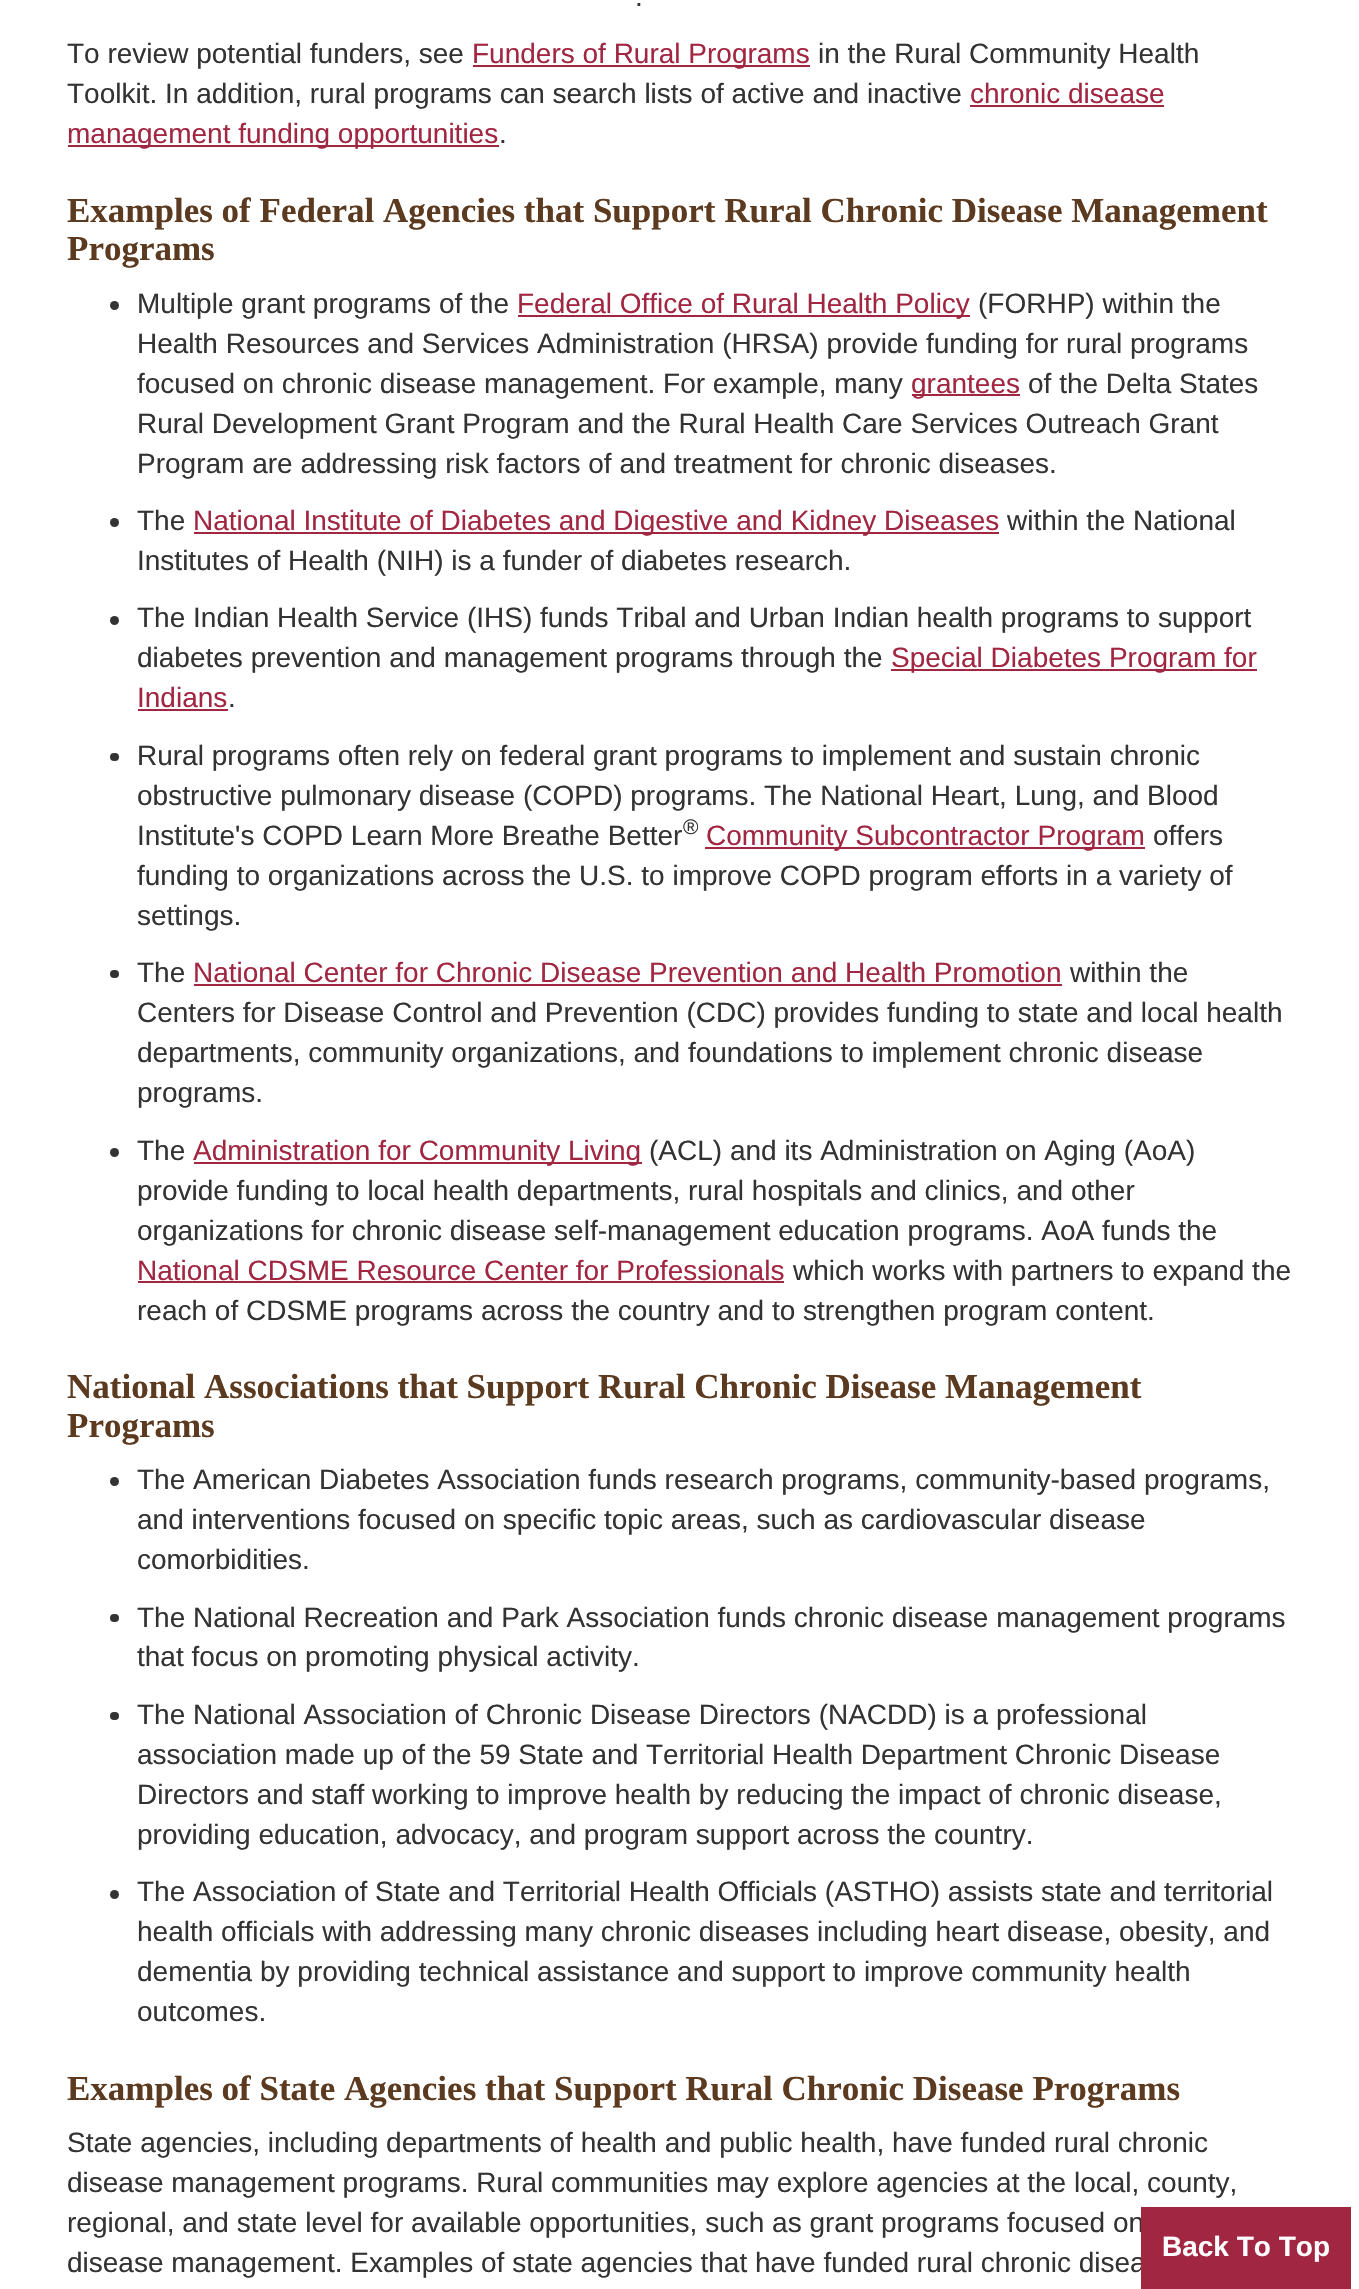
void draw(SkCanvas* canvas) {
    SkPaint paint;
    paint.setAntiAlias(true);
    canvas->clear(0xFFFFFFFF);
    SkFont font1(fontMgr->matchFamilyStyle("Liberation Sans", SkFontStyle::Normal()), 28);
    font1.setSubpixel(true);
    paint.setColor(0xFF333333);
    canvas->drawString(".", 635, 6, font1, paint);
    canvas->drawString("To review potential funders, see", 67, 63, font1, paint);
    paint.setColor(0xFFA12641);
    canvas->drawRect(SkRect::MakeXYWH(473, 65, 337, 2), paint);
    canvas->drawString("Funders of Rural Programs", 472, 63, font1, paint);
    paint.setColor(0xFF333333);
    canvas->drawString("in the Rural Community Health", 818, 63, font1, paint);
    canvas->drawString("Toolkit. In addition, rural programs can search lists of active and inactive", 67, 103, font1, paint);
    paint.setColor(0xFFA12641);
    canvas->drawString("chronic disease", 970, 103, font1, paint);
    canvas->drawRect(SkRect::MakeXYWH(970, 105, 194, 2), paint);
    canvas->drawRect(SkRect::MakeXYWH(68, 145, 431, 2), paint);
    canvas->drawString("management funding opportunities", 67, 143, font1, paint);
    paint.setColor(0xFF333333);
    canvas->drawString(".", 499, 143, font1, paint);
    SkFont font2(fontMgr->matchFamilyStyle("Liberation Serif", SkFontStyle::Bold()), 35);
    font2.setSubpixel(true);
    paint.setColor(0xFF5C3A1F);
    canvas->drawString("Examples of Federal Agencies that Support Rural Chronic Disease Management", 67, 222, font2, paint);
    canvas->drawString("Programs", 67, 260, font2, paint);
    paint.setColor(0xFF333333);
    canvas->drawCircle(114.5f, 305.5f, 4.5f, paint);
    canvas->drawString("Multiple grant programs of the", 137, 313, font1, paint);
    paint.setColor(0xFFA12641);
    canvas->drawRect(SkRect::MakeXYWH(518, 315, 452, 2), paint);
    canvas->drawString("Federal Office of Rural Health Policy", 517, 313, font1, paint);
    paint.setColor(0xFF333333);
    canvas->drawString("(FORHP) within the", 978, 313, font1, paint);
    canvas->drawString("Health Resources and Services Administration (HRSA) provide funding for rural programs", 137, 353, font1, paint);
    canvas->drawString("focused on chronic disease management. For example, many", 137, 393, font1, paint);
    paint.setColor(0xFFA12641);
    canvas->drawRect(SkRect::MakeXYWH(912, 394, 108, 2), paint);
    canvas->drawString("grantees", 911, 393, font1, paint);
    paint.setColor(0xFF333333);
    canvas->drawString("of the Delta States", 1028, 393, font1, paint);
    canvas->drawString("Rural Development Grant Program and the Rural Health Care Services Outreach Grant", 137, 433, font1, paint);
    canvas->drawString("Program are addressing risk factors of and treatment for chronic diseases.", 137, 473, font1, paint);
    canvas->drawCircle(114.5f, 522.5f, 4.5f, paint);
    canvas->drawString("The", 137, 530, font1, paint);
    paint.setColor(0xFFA12641);
    canvas->drawRect(SkRect::MakeXYWH(194, 532, 805, 2), paint);
    canvas->drawString("National Institute of Diabetes and Digestive and Kidney Diseases", 193, 530, font1, paint);
    paint.setColor(0xFF333333);
    canvas->drawString("within the National", 1007, 530, font1, paint);
    canvas->drawString("Institutes of Health (NIH) is a funder of diabetes research.", 137, 570, font1, paint);
    canvas->drawCircle(114.5f, 620.5f, 4.5f, paint);
    canvas->drawString("The Indian Health Service (IHS) funds Tribal and Urban Indian health programs to support", 137, 627, font1, paint);
    canvas->drawString("diabetes prevention and management programs through the", 137, 667, font1, paint);
    paint.setColor(0xFFA12641);
    canvas->drawRect(SkRect::MakeXYWH(891, 669, 366, 2), paint);
    canvas->drawString("Special Diabetes Program for", 891, 667, font1, paint);
    canvas->drawString("Indians", 137, 707, font1, paint);
    canvas->drawRect(SkRect::MakeXYWH(138, 709, 90, 2), paint);
    paint.setColor(0xFF333333);
    canvas->drawString(".", 228, 707, font1, paint);
    canvas->drawRoundRect(SkRect::MakeXYWH(110, 753, 9, 8), 4, 4, paint);
    canvas->drawString("Rural programs often rely on federal grant programs to implement and sustain chronic", 137, 765, font1, paint);
    canvas->drawString("obstructive pulmonary disease (COPD) programs. The National Heart, Lung, and Blood", 137, 805, font1, paint);
    canvas->drawString("Institute's COPD Learn More Breathe Better", 137, 845, font1, paint);
    SkFont font3(fontMgr->matchFamilyStyle("Liberation Sans", SkFontStyle::Normal()), 21);
    font3.setSubpixel(true);
    canvas->drawString("®", 683, 834, font3, paint);
    paint.setColor(0xFFA12641);
    canvas->drawRect(SkRect::MakeXYWH(705, 847, 440, 2), paint);
    canvas->drawString("Community Subcontractor Program", 706, 845, font1, paint);
    paint.setColor(0xFF333333);
    canvas->drawString("offers", 1153, 845, font1, paint);
    canvas->drawString("funding to organizations across the U.S. to improve COPD program efforts in a variety of", 137, 885, font1, paint);
    canvas->drawString("settings.", 137, 925, font1, paint);
    canvas->drawRoundRect(SkRect::MakeXYWH(110, 970, 9, 8), 4, 4, paint);
    canvas->drawString("The", 137, 982, font1, paint);
    paint.setColor(0xFFA12641);
    canvas->drawString("National Center for Chronic Disease Prevention and Health Promotion", 193, 982, font1, paint);
    canvas->drawRect(SkRect::MakeXYWH(194, 984, 868, 2), paint);
    paint.setColor(0xFF333333);
    canvas->drawString("within the", 1070, 982, font1, paint);
    canvas->drawString("Centers for Disease Control and Prevention (CDC) provides funding to state and local health", 137, 1022, font1, paint);
    canvas->drawString("departments, community organizations, and foundations to implement chronic disease", 137, 1062, font1, paint);
    canvas->drawString("programs.", 137, 1102, font1, paint);
    canvas->drawCircle(114.5f, 1152.5f, 4.5f, paint);
    canvas->drawString("The", 137, 1160, font1, paint);
    paint.setColor(0xFFA12641);
    canvas->drawRect(SkRect::MakeXYWH(194, 1162, 448, 2), paint);
    canvas->drawString("Administration for Community Living", 193, 1160, font1, paint);
    paint.setColor(0xFF333333);
    canvas->drawString("(ACL) and its Administration on Aging (AoA)", 649, 1160, font1, paint);
    canvas->drawString("provide funding to local health departments, rural hospitals and clinics, and other", 137, 1200, font1, paint);
    canvas->drawString("organizations for chronic disease self-management education programs. AoA funds the", 137, 1240, font1, paint);
    paint.setColor(0xFFA12641);
    canvas->drawString("National CDSME Resource Center for Professionals", 137, 1280, font1, paint);
    canvas->drawRect(SkRect::MakeXYWH(138, 1281, 646, 2), paint);
    paint.setColor(0xFF333333);
    canvas->drawString("which works with partners to expand the", 793, 1280, font1, paint);
    canvas->drawString("reach of CDSME programs across the country and to strengthen program content.", 137, 1320, font1, paint);
    paint.setColor(0xFF5C3A1F);
    canvas->drawString("National Associations that Support Rural Chronic Disease Management", 67, 1398, font2, paint);
    canvas->drawString("Programs", 67, 1437, font2, paint);
    paint.setColor(0xFF333333);
    canvas->drawCircle(114.5f, 1481.5f, 4.5f, paint);
    canvas->drawString("The American Diabetes Association funds research programs, community-based programs,", 137, 1489, font1, paint);
    canvas->drawString("and interventions focused on specific topic areas, such as cardiovascular disease", 137, 1529, font1, paint);
    canvas->drawString("comorbidities.", 137, 1569, font1, paint);
    canvas->drawRoundRect(SkRect::MakeXYWH(110, 1614, 9, 8), 4, 4, paint);
    canvas->drawString("The National Recreation and Park Association funds chronic disease management programs", 137, 1627, font1, paint);
    canvas->drawString("that focus on promoting physical activity.", 137, 1666, font1, paint);
    canvas->drawRoundRect(SkRect::MakeXYWH(110, 1712, 9, 8), 4, 4, paint);
    canvas->drawString("The National Association of Chronic Disease Directors (NACDD) is a professional", 137, 1724, font1, paint);
    canvas->drawString("association made up of the 59 State and Territorial Health Department Chronic Disease", 137, 1764, font1, paint);
    canvas->drawString("Directors and staff working to improve health by reducing the impact of chronic disease,", 137, 1804, font1, paint);
    canvas->drawString("providing education, advocacy, and program support across the country.", 137, 1844, font1, paint);
    canvas->drawCircle(114.5f, 1894.5f, 4.5f, paint);
    canvas->drawString("The Association of State and Territorial Health Officials (ASTHO) assists state and territorial", 137, 1901, font1, paint);
    canvas->drawString("health officials with addressing many chronic diseases including heart disease, obesity, and", 137, 1941, font1, paint);
    canvas->drawString("dementia by providing technical assistance and support to improve community health", 137, 1981, font1, paint);
    canvas->drawString("outcomes.", 137, 2021, font1, paint);
    paint.setColor(0xFF5C3A1F);
    canvas->drawString("Examples of State Agencies that Support Rural Chronic Disease Programs", 67, 2100, font2, paint);
    paint.setColor(0xFF333333);
    canvas->drawString("State agencies, including departments of health and public health, have funded rural chronic", 67, 2152, font1, paint);
    canvas->drawString("disease management programs. Rural communities may explore agencies at the local, county,", 67, 2192, font1, paint);
    canvas->drawString("regional, and state level for available opportunities, such as grant programs focused on", 67, 2232, font1, paint);
    canvas->drawString("disease management. Examples of state agencies that have funded rural chronic disea", 67, 2272, font1, paint);
    paint.setColor(0xFFA12641);
    canvas->drawRect(SkRect::MakeXYWH(1141, 2207, 210, 82), paint);
    SkFont font4(fontMgr->matchFamilyStyle("Liberation Sans", SkFontStyle::Bold()), 28);
    font4.setSubpixel(true);
    paint.setColor(0xFFFFFFFF);
    canvas->drawString("Back To Top", 1162, 2256, font4, paint);
}
